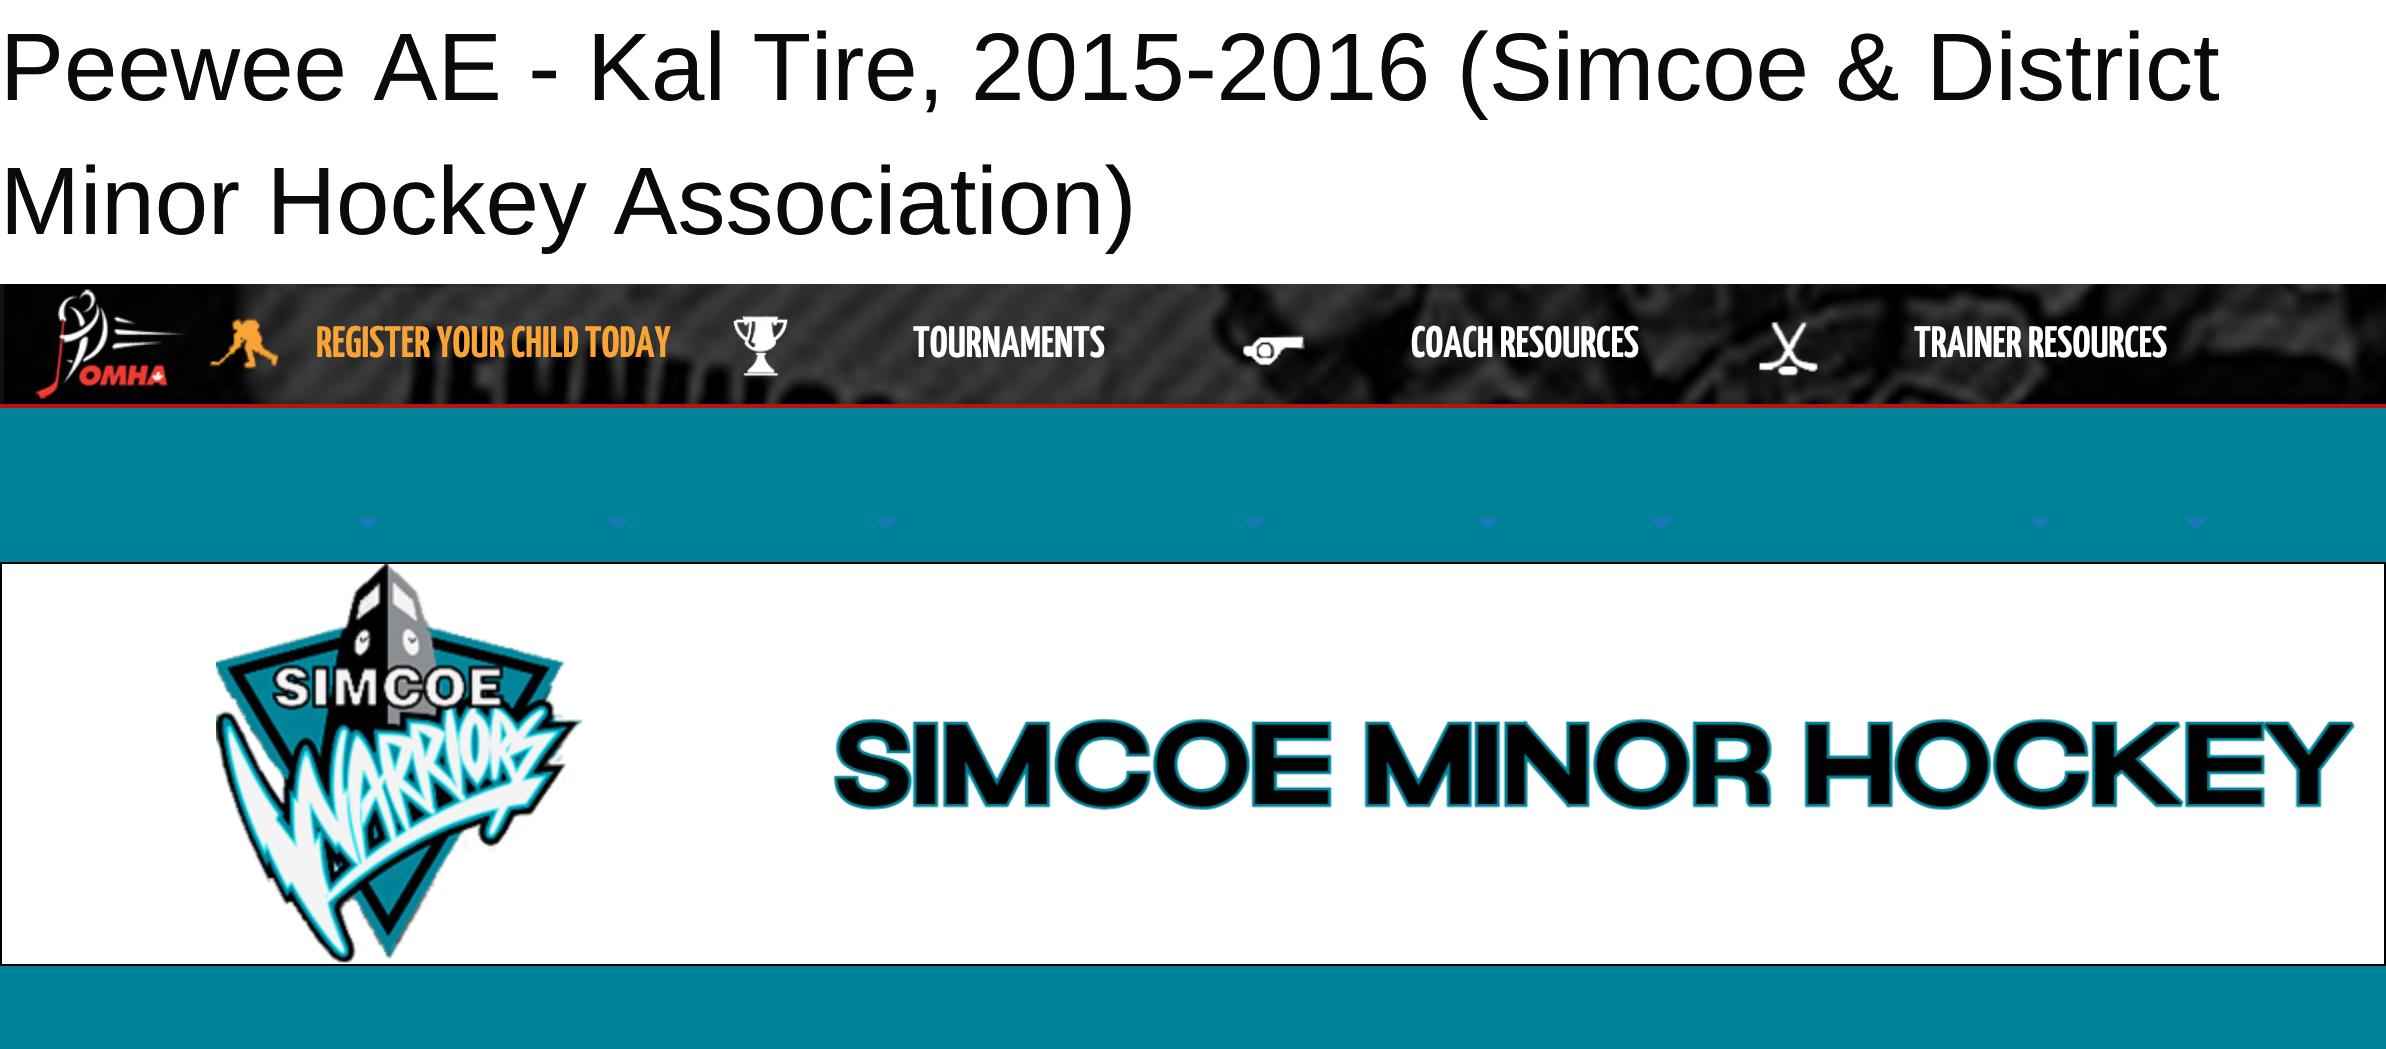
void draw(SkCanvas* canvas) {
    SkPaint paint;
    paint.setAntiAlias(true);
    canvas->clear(0xFFFFFFFF);
    SkFont font1(fontMgr->matchFamilyStyle("Liberation Sans", SkFontStyle::Normal()), 96);
    font1.setSubpixel(true);
    paint.setColor(0xFF0A0A0A);
    canvas->drawString("Peewee AE - Kal Tire, 2015-2016 (Simcoe & District", 0, 100, font1, paint);
    canvas->drawString("Minor Hockey Association)", 0, 234, font1, paint);
    paint.setColor(0xFFC60C0C);
    canvas->drawRect(SkRect::MakeXYWH(0, 404, 2386, 4), paint);
    canvas->drawImageRect(SkImages::DeferredFromEncodedData(SkData::MakeFromFileName("img1.png")), SkRect::MakeXYWH(0, 284, 2386, 120), SkSamplingOptions());
    canvas->drawImageRect(SkImages::DeferredFromEncodedData(SkData::MakeFromFileName("img2.png")), SkRect::MakeXYWH(35, 289, 151, 110), SkSamplingOptions());
    canvas->drawImageRect(SkImages::DeferredFromEncodedData(SkData::MakeFromFileName("img3.png")), SkRect::MakeXYWH(210, 318, 68, 51), SkSamplingOptions());
    SkFont font2(fontMgr->matchFamilyStyle("Yanone Kaffeesatz", SkFontStyle(200, SkFontStyle::kNormal_Width, SkFontStyle::kUpright_Slant)), 44);
    font2.setSubpixel(true);
    paint.setColor(0xFFF9A435);
    canvas->drawString("REGISTER YOUR CHILD TODAY", 316, 357, font2, paint);
    canvas->drawImageRect(SkImages::DeferredFromEncodedData(SkData::MakeFromFileName("img4.png")), SkRect::MakeXYWH(732, 315, 57, 62), SkSamplingOptions());
    paint.setColor(0xFFFFFFFF);
    canvas->drawString("TOURNAMENTS", 913, 357, font2, paint);
    canvas->drawImageRect(SkImages::DeferredFromEncodedData(SkData::MakeFromFileName("img5.png")), SkRect::MakeXYWH(1242, 335, 63, 31), SkSamplingOptions());
    canvas->drawString("COACH RESOURCES", 1411, 357, font2, paint);
    canvas->drawImageRect(SkImages::DeferredFromEncodedData(SkData::MakeFromFileName("img6.png")), SkRect::MakeXYWH(1759, 321, 59, 56), SkSamplingOptions());
    canvas->drawString("TRAINER RESOURCES", 1914, 357, font2, paint);
    paint.setColor(0xFF008298);
    canvas->drawRect(SkRect::MakeXYWH(0, 408, 2386, 641), paint);
    paint.setColor(0xFF1779BA);
    canvas->drawPath(SkPathBuilder().moveTo(356, 518).lineTo(380, 518).lineTo(368, 530).close().detach(), paint);
    canvas->drawPath(SkPathBuilder().moveTo(606, 518).lineTo(630, 518).lineTo(618, 530).close().detach(), paint);
    canvas->drawPath(SkPathBuilder().moveTo(874, 518).lineTo(898, 518).lineTo(886, 530).close().detach(), paint);
    canvas->drawPath(SkPathBuilder().moveTo(1242, 518).lineTo(1266, 518).lineTo(1254, 530).close().detach(), paint);
    canvas->drawPath(SkPathBuilder().moveTo(1476, 518).lineTo(1500, 518).lineTo(1488, 530).close().detach(), paint);
    canvas->drawPath(SkPathBuilder().moveTo(1650, 518).lineTo(1674, 518).lineTo(1662, 530).close().detach(), paint);
    canvas->drawPath(SkPathBuilder().moveTo(2028, 518).lineTo(2052, 518).lineTo(2040, 530).close().detach(), paint);
    canvas->drawPath(SkPathBuilder().moveTo(2184, 518).lineTo(2208, 518).lineTo(2196, 530).close().detach(), paint);
    paint.setColor(0xFFFFFFFF);
    canvas->drawRect(SkRect::MakeXYWH(1, 563, 2384, 402), paint);
    paint.setStyle(SkPaint::kStroke_Style);
    paint.setStrokeWidth(2);
    paint.setColor(0xFF000000);
    canvas->drawRect(SkRect::MakeXYWH(1, 563, 2384, 402), paint);
    canvas->drawImageRect(SkImages::DeferredFromEncodedData(SkData::MakeFromFileName("img7.png")), SkRect::MakeXYWH(216, 564, 366, 400), SkSamplingOptions());
    canvas->drawImageRect(SkImages::DeferredFromEncodedData(SkData::MakeFromFileName("img8.png")), SkRect::MakeXYWH(833, 718, 1523, 92), SkSamplingOptions());
}
